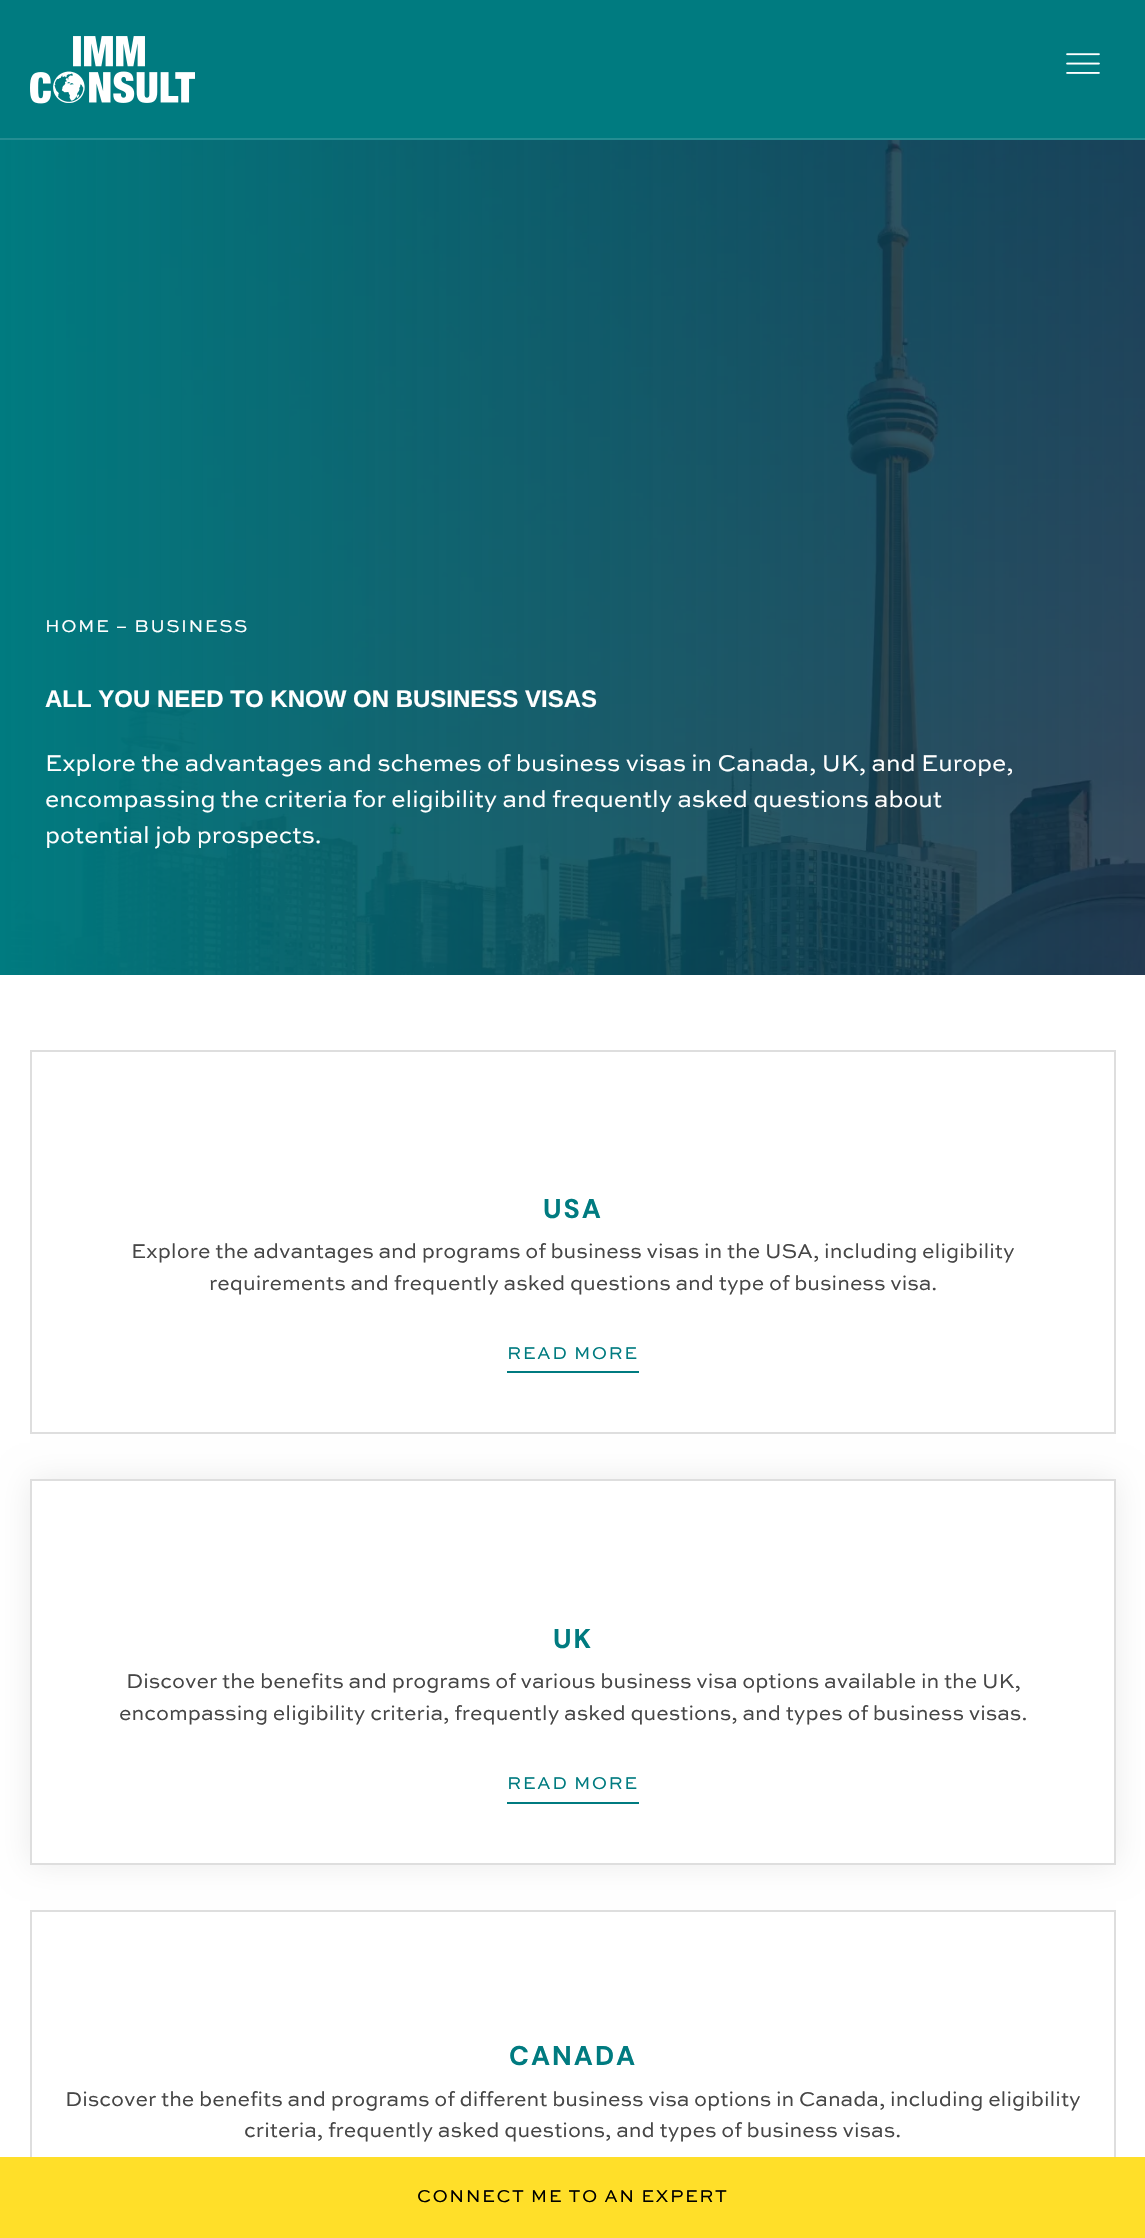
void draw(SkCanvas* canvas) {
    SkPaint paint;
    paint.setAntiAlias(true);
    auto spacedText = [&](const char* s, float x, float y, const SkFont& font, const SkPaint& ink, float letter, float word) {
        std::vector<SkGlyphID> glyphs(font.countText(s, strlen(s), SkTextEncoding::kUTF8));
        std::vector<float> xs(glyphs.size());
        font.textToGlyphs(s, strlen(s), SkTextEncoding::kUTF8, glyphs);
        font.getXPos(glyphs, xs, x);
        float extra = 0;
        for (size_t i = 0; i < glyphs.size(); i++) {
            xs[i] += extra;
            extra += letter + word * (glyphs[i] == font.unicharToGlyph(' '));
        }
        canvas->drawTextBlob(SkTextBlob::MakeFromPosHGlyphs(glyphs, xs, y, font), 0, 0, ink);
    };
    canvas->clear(0xFFFFFFFF);
    paint.setColor(0xFF007B80);
    canvas->drawRect(SkRect::MakeXYWH(0, 0, 1145, 138), paint);
    paint.setColor(0xFF248D92);
    canvas->drawRect(SkRect::MakeXYWH(0, 138, 1145, 2), paint);
    canvas->drawImageRect(SkImages::DeferredFromEncodedData(SkData::MakeFromFileName("img1.png")), SkRect::MakeXYWH(30, 36, 165, 68), SkSamplingOptions());
    canvas->drawImageRect(SkImages::DeferredFromEncodedData(SkData::MakeFromFileName("img2.png")), SkRect::MakeXYWH(1066, 53, 34, 21), SkSamplingOptions());
    canvas->drawImageRect(SkImages::DeferredFromEncodedData(SkData::MakeFromFileName("img3.png")), SkRect::MakeXYWH(0, 140, 1145, 835), SkSamplingOptions());
    SkFont font1(fontMgr->matchFamilyStyle("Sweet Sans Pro", SkFontStyle::Normal()), 18);
    font1.setSubpixel(true);
    paint.setColor(0xFFFFFFFF);
    spacedText("HOME – BUSINESS", 45, 632, font1, paint, 1.5f, 0);
    SkFont font2(fontMgr->matchFamilyStyle("Liberation Sans", SkFontStyle::Bold()), 24);
    font2.setSubpixel(true);
    canvas->drawString("ALL YOU NEED TO KNOW ON BUSINESS VISAS", 45, 707, font2, paint);
    SkFont font3(fontMgr->matchFamilyStyle("Sweet Sans Pro", SkFontStyle::Normal()), 24);
    font3.setSubpixel(true);
    canvas->drawString("Explore the advantages and schemes of business visas in Canada, UK, and Europe,", 45, 771, font3, paint);
    canvas->drawString("encompassing the criteria for eligibility and frequently asked questions about", 45, 807, font3, paint);
    canvas->drawString("potential job prospects.", 45, 843, font3, paint);
    paint.setStyle(SkPaint::kStroke_Style);
    paint.setStrokeWidth(2);
    paint.setColor(0xFFDEDEDE);
    canvas->drawRect(SkRect::MakeXYWH(31, 1051, 1084, 382), paint);
    SkFont font4(fontMgr->matchFamilyStyle("DM Sans", SkFontStyle::Bold()), 27);
    font4.setSubpixel(true);
    paint.setStyle(SkPaint::kFill_Style);
    paint.setColor(0xFF007B80);
    spacedText("USA", 543, 1218, font4, paint, 2, 0);
    SkFont font5(fontMgr->matchFamilyStyle("Sweet Sans Pro", SkFontStyle::Normal()), 21);
    font5.setSubpixel(true);
    paint.setColor(0xFF464646);
    canvas->drawString("Explore the advantages and programs of business visas in the USA, including eligibility", 131, 1258, font5, paint);
    canvas->drawString("requirements and frequently asked questions and type of business visa.", 209, 1290, font5, paint);
    paint.setColor(0xFF007B80);
    canvas->drawRect(SkRect::MakeXYWH(507, 1371, 132, 2), paint);
    spacedText("READ MORE", 507, 1359, font1, paint, 1.5f, 0);
    paint.setColor(0x14000000);
    paint.setMaskFilter(SkMaskFilter::MakeBlur(kNormal_SkBlurStyle, 15));
    canvas->drawRect(SkRect::MakeXYWH(30, 1479, 1086, 386), paint);
    paint.setMaskFilter(nullptr);
    paint.setColor(0xFFFFFFFF);
    canvas->drawRect(SkRect::MakeXYWH(31, 1480, 1084, 384), paint);
    paint.setStyle(SkPaint::kStroke_Style);
    paint.setColor(0xFFDEDEDE);
    canvas->drawRect(SkRect::MakeXYWH(31, 1480, 1084, 384), paint);
    paint.setStyle(SkPaint::kFill_Style);
    paint.setColor(0xFF007B80);
    spacedText("UK", 553, 1648, font4, paint, 2, 0);
    paint.setColor(0xFF464646);
    canvas->drawString("Discover the benefits and programs of various business visa options available in the UK,", 126, 1688, font5, paint);
    canvas->drawString("encompassing eligibility criteria, frequently asked questions, and types of business visas.", 119, 1720, font5, paint);
    paint.setColor(0xFF007B80);
    canvas->drawRect(SkRect::MakeXYWH(507, 1802, 132, 2), paint);
    spacedText("READ MORE", 507, 1789, font1, paint, 1.5f, 0);
    paint.setStyle(SkPaint::kStroke_Style);
    paint.setColor(0xFFDEDEDE);
    canvas->drawRect(SkRect::MakeXYWH(31, 1911, 1084, 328), paint);
    paint.setStyle(SkPaint::kFill_Style);
    paint.setColor(0xFF007B80);
    spacedText("CANADA", 509, 2065, font4, paint, 2, 0);
    paint.setColor(0xFF464646);
    canvas->drawString("Discover the benefits and programs of different business visa options in Canada, including eligibility", 65, 2106, font5, paint);
    canvas->drawString("criteria, frequently asked questions, and types of business visas.", 244, 2137, font5, paint);
    paint.setColor(0xFFFFDF29);
    canvas->drawRect(SkRect::MakeXYWH(0, 2157, 1145, 81), paint);
    paint.setColor(0xFF000000);
    spacedText("CONNECT ME TO AN EXPERT", 417, 2202, font1, paint, 1.5f, 0);
}
